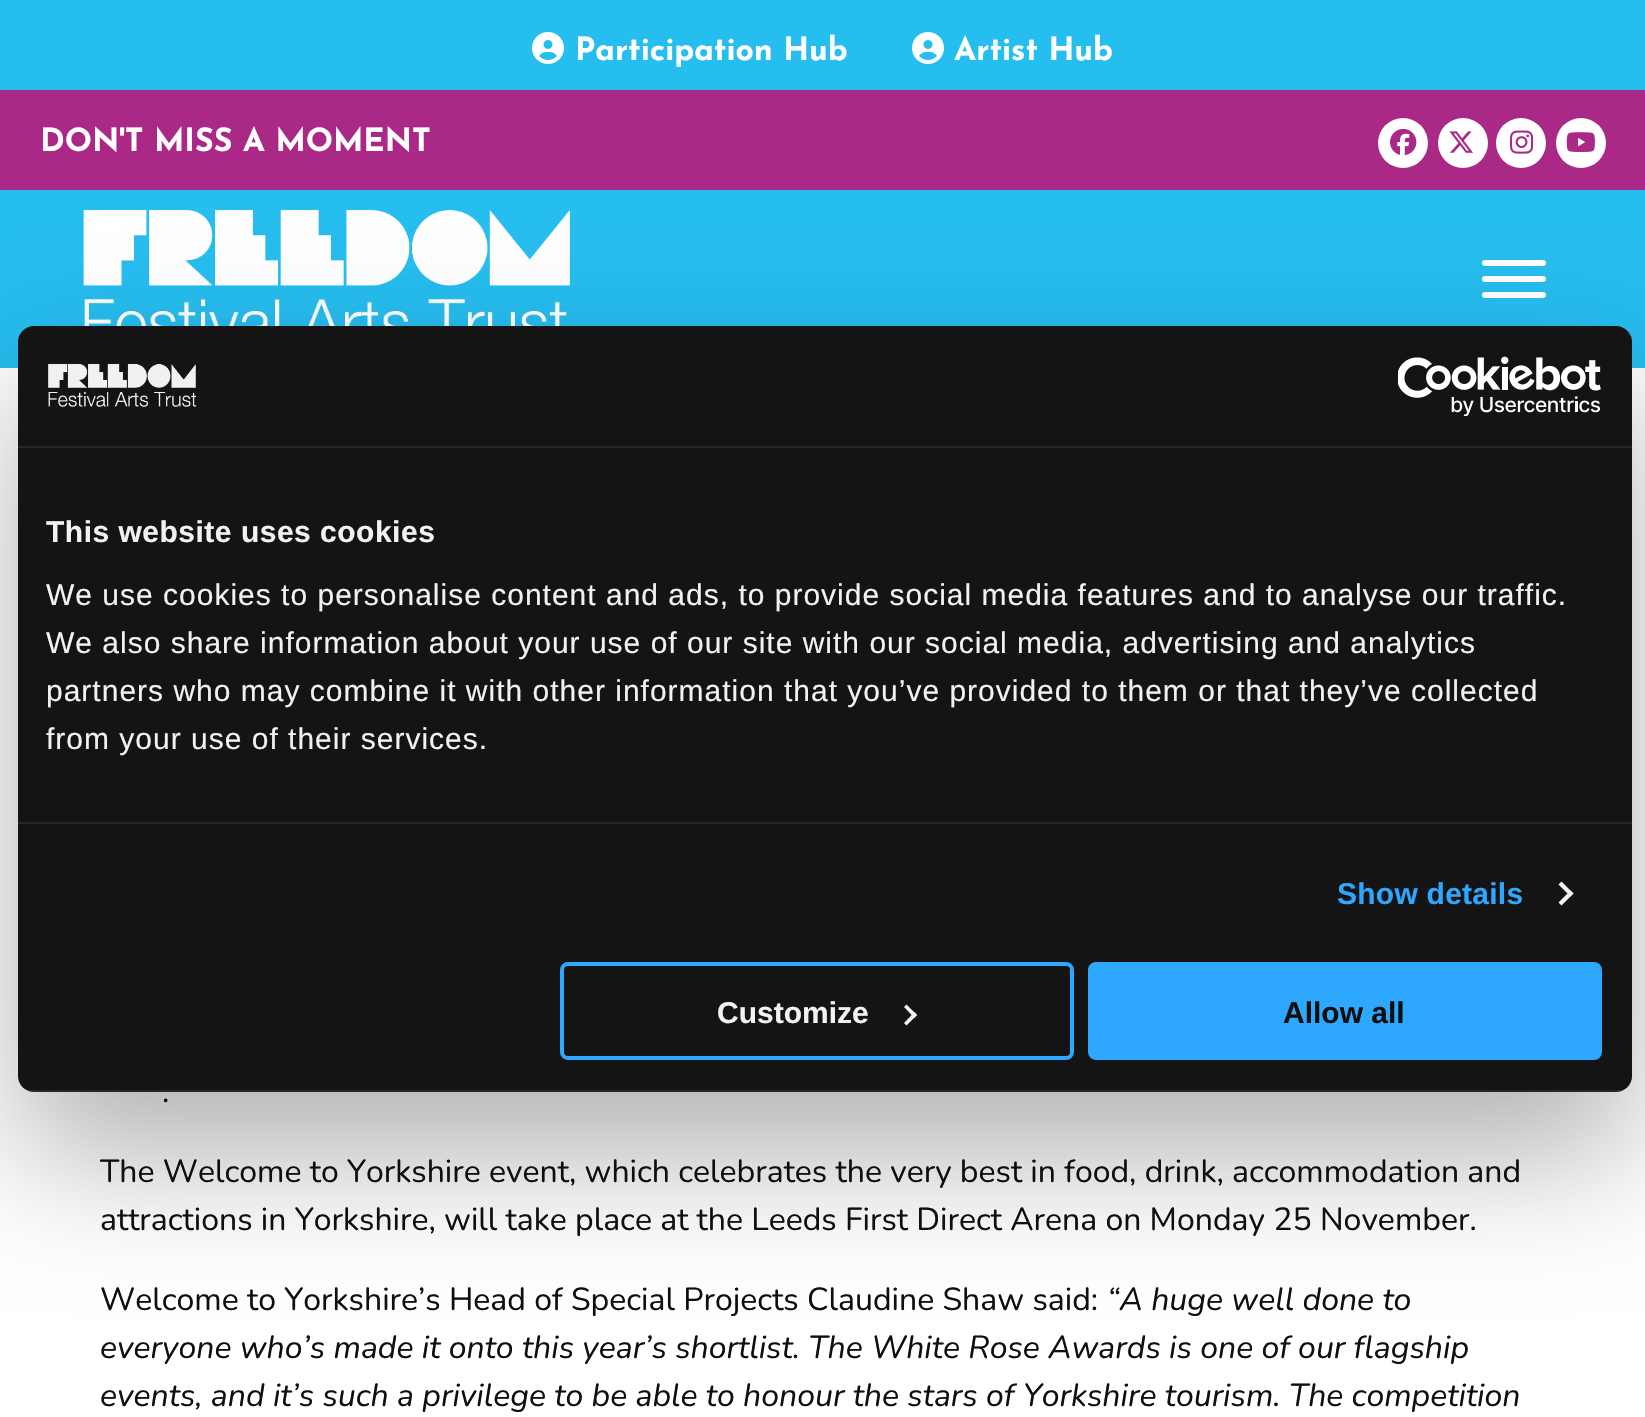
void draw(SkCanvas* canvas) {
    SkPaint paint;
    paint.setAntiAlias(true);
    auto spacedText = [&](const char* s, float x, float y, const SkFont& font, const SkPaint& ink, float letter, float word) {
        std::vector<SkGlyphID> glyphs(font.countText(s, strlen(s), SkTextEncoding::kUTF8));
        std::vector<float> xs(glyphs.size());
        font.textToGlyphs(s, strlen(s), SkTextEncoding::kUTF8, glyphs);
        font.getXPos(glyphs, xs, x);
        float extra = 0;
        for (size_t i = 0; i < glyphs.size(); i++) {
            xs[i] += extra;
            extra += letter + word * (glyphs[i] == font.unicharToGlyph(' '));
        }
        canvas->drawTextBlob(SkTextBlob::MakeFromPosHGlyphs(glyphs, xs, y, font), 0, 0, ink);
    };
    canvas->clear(0xFFFFFFFF);
    paint.setColor(0xFF26BDEF);
    canvas->drawRect(SkRect::MakeXYWH(0, 0, 1645, 90), paint);
    canvas->drawImageRect(SkImages::DeferredFromEncodedData(SkData::MakeFromFileName("img1.png")), SkRect::MakeXYWH(532, 32, 32, 32), SkSamplingOptions());
    SkFont font1(fontMgr->matchFamilyStyle("Josefin Sans", SkFontStyle::Bold()), 32);
    font1.setSubpixel(true);
    paint.setColor(0xFFFFFFFF);
    canvas->drawString("Participation Hub", 575, 60, font1, paint);
    canvas->drawImageRect(SkImages::DeferredFromEncodedData(SkData::MakeFromFileName("img1.png")), SkRect::MakeXYWH(912, 32, 32, 32), SkSamplingOptions());
    canvas->drawString("Artist Hub", 954, 60, font1, paint);
    paint.setColor(0xFFAA2986);
    canvas->drawRect(SkRect::MakeXYWH(0, 90, 1645, 100), paint);
    paint.setColor(0xFFFFFFFF);
    canvas->drawString("DON'T MISS A MOMENT", 40, 151, font1, paint);
    canvas->drawCircle(1403, 143, 25, paint);
    canvas->drawImageRect(SkImages::DeferredFromEncodedData(SkData::MakeFromFileName("img2.png")), SkRect::MakeXYWH(1390, 128, 27, 28), SkSamplingOptions());
    canvas->drawCircle(1463, 143, 25, paint);
    canvas->drawImageRect(SkImages::DeferredFromEncodedData(SkData::MakeFromFileName("img3.png")), SkRect::MakeXYWH(1449, 131, 24, 22), SkSamplingOptions());
    canvas->drawCircle(1521, 143, 25, paint);
    canvas->drawImageRect(SkImages::DeferredFromEncodedData(SkData::MakeFromFileName("img4.png")), SkRect::MakeXYWH(1510, 130, 24, 24), SkSamplingOptions());
    canvas->drawCircle(1581, 143, 25, paint);
    canvas->drawImageRect(SkImages::DeferredFromEncodedData(SkData::MakeFromFileName("img5.png")), SkRect::MakeXYWH(1566, 132, 29, 20), SkSamplingOptions());
    paint.setColor(0xFF26BDEF);
    canvas->drawRect(SkRect::MakeXYWH(0, 190, 1645, 178), paint);
    canvas->drawImageRect(SkImages::DeferredFromEncodedData(SkData::MakeFromFileName("img6.png")), SkRect::MakeXYWH(83, 209, 487, 117), SkSamplingOptions());
    paint.setColor(0xFFFFFFFF);
    canvas->drawRoundRect(SkRect::MakeXYWH(1482, 260, 64, 6), 3, 3, paint);
    canvas->drawRoundRect(SkRect::MakeXYWH(1482, 276, 64, 6), 3, 3, paint);
    canvas->drawRoundRect(SkRect::MakeXYWH(1482, 292, 64, 6), 3, 3, paint);
    paint.setColor(0x4D000000);
    paint.setMaskFilter(SkMaskFilter::MakeBlur(kNormal_SkBlurStyle, 68));
    canvas->drawRoundRect(SkRect::MakeXYWH(18, 390, 1614, 766), 16, 16, paint);
    paint.setMaskFilter(nullptr);
    paint.setColor(0xFF141414);
    canvas->drawRoundRect(SkRect::MakeXYWH(18, 326, 1614, 766), 16, 16, paint);
    paint.setColor(0xFF272727);
    canvas->drawRect(SkRect::MakeXYWH(18, 446, 1614, 2), paint);
    canvas->drawImageRect(SkImages::DeferredFromEncodedData(SkData::MakeFromFileName("img7.png")), SkRect::MakeXYWH(48, 363, 149, 44), SkSamplingOptions());
    canvas->drawImageRect(SkImages::DeferredFromEncodedData(SkData::MakeFromFileName("img8.png")), SkRect::MakeXYWH(1398, 356, 203, 60), SkSamplingOptions());
    canvas->drawRect(SkRect::MakeXYWH(18, 822, 1614, 2), paint);
    SkFont font2(fontMgr->matchFamilyStyle("Liberation Sans", SkFontStyle::Bold()), 30);
    font2.setSubpixel(true);
    paint.setColor(0xFFF2F2F2);
    spacedText("This website uses cookies", 46, 542, font2, paint, 0.5f, 0);
    SkFont font3(fontMgr->matchFamilyStyle("Liberation Sans", SkFontStyle::Normal()), 30);
    font3.setSubpixel(true);
    spacedText("We use cookies to personalise content and ads, to provide social media features and to analyse our traffic.", 46, 605, font3, paint, 1, 0);
    spacedText("We also share information about your use of our site with our social media, advertising and analytics", 46, 653, font3, paint, 1, 0);
    spacedText("partners who may combine it with other information that you’ve provided to them or that they’ve collected", 46, 701, font3, paint, 1, 0);
    spacedText("from your use of their services.", 46, 749, font3, paint, 1, 0);
    paint.setColor(0xFF2EA7FF);
    spacedText("Show details", 1337, 904, font2, paint, 0.25f, 0);
    paint.setColor(0xFFF2F2F2);
    canvas->drawPath(SkPathBuilder().moveTo(1561.5f, 881.5f).lineTo(1573.5f, 893.5f).lineTo(1570.5f, 896.5f).lineTo(1558.5f, 884.5f).close().detach(), paint);
    canvas->drawPath(SkPathBuilder().moveTo(1570.5f, 890.5f).lineTo(1573.5f, 893.5f).lineTo(1561.5f, 905.5f).lineTo(1558.5f, 902.5f).close().detach(), paint);
    canvas->save();
    canvas->clipPath(SkPathBuilder().moveTo(34, 326).lineTo(1616, 326).cubicTo(1625, 326, 1632, 333, 1632, 342).lineTo(1632, 1076).cubicTo(1632, 1085, 1625, 1092, 1616, 1092).lineTo(34, 1092).cubicTo(25, 1092, 18, 1085, 18, 1076).lineTo(18, 342).cubicTo(18, 333, 25, 326, 34, 326).close().detach(), true);
    paint.setColor(0x14FFFFFF);
    canvas->drawRect(SkRect::MakeXYWH(27, 1090, 1596, 2), paint);
    canvas->restore();
    paint.setStyle(SkPaint::kStroke_Style);
    paint.setStrokeWidth(4);
    paint.setColor(0xFF2EA7FF);
    canvas->drawRoundRect(SkRect::MakeXYWH(562, 964, 510, 94), 6, 6, paint);
    paint.setStyle(SkPaint::kFill_Style);
    paint.setColor(0xFFF2F2F2);
    canvas->drawString("Customize", 717, 1023, font2, paint);
    canvas->drawPath(SkPathBuilder().moveTo(906.5f, 1004.5f).lineTo(917, 1015).lineTo(914.5f, 1018).lineTo(904, 1007).close().detach(), paint);
    canvas->drawPath(SkPathBuilder().moveTo(914.5f, 1012).lineTo(917, 1015).lineTo(906.5f, 1025.5f).lineTo(904, 1023).close().detach(), paint);
    paint.setColor(0xFF2EA7FF);
    canvas->drawRoundRect(SkRect::MakeXYWH(1090, 964, 510, 94), 6, 6, paint);
    paint.setStyle(SkPaint::kStroke_Style);
    canvas->drawRoundRect(SkRect::MakeXYWH(1090, 964, 510, 94), 6, 6, paint);
    paint.setStyle(SkPaint::kFill_Style);
    paint.setColor(0xFF0F0F0F);
    canvas->drawString("Allow all", 1283, 1023, font2, paint);
    SkFont font4(fontMgr->matchFamilyStyle("Nunito", SkFontStyle::Normal()), 32);
    font4.setSubpixel(true);
    canvas->drawString(".", 162, 1102, font4, paint);
    canvas->drawString("The Welcome to Yorkshire event, which celebrates the very best in food, drink, accommodation and", 100, 1182, font4, paint);
    canvas->drawString("attractions in Yorkshire, will take place at the Leeds First Direct Arena on Monday 25 November.", 100, 1230, font4, paint);
    canvas->drawString("Welcome to Yorkshire’s Head of Special Projects Claudine Shaw said:", 100, 1310, font4, paint);
    SkFont font5(fontMgr->matchFamilyStyle("Nunito", SkFontStyle::Italic()), 32);
    font5.setSubpixel(true);
    canvas->drawString("“A huge well done to", 1107, 1310, font5, paint);
    canvas->drawString("everyone who’s made it onto this year’s shortlist. The White Rose Awards is one of our flagship", 100, 1358, font5, paint);
    canvas->drawString("events, and it’s such a privilege to be able to honour the stars of Yorkshire tourism. The competition", 100, 1406, font5, paint);
}
